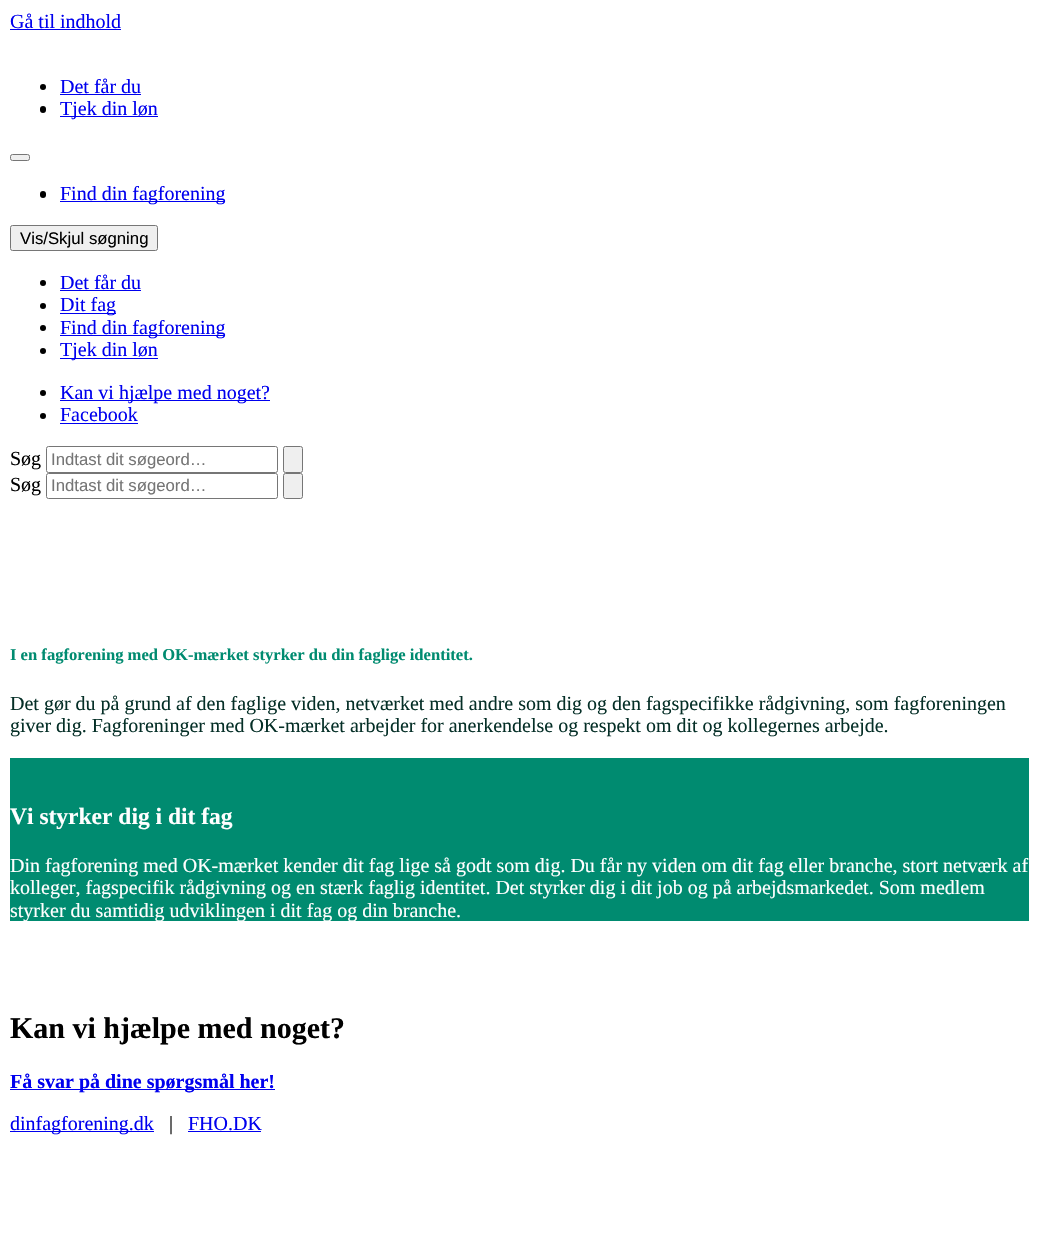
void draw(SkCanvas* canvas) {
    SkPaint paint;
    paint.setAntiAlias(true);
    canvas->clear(0xFFFFFFFF);
    SkFont font1(fontMgr->matchFamilyStyle("Liberation Serif", SkFontStyle::Normal()), 20);
    font1.setSubpixel(true);
    paint.setColor(0xFF0000EE);
    canvas->drawString("Gå til indhold", 10, 28, font1, paint);
    canvas->drawRect(SkRect::MakeXYWH(10, 29, 111, 1), paint);
    paint.setColor(0xFF000000);
    canvas->drawCircle(43, 87, 3, paint);
    paint.setColor(0xFF0000EE);
    canvas->drawString("Det får du", 60, 93, font1, paint);
    canvas->drawRect(SkRect::MakeXYWH(60, 94, 81, 1), paint);
    paint.setColor(0xFF000000);
    canvas->drawRoundRect(SkRect::MakeXYWH(40, 106, 6, 7), 3, 3, paint);
    paint.setColor(0xFF0000EE);
    canvas->drawRect(SkRect::MakeXYWH(60, 116, 98, 1), paint);
    canvas->drawString("Tjek din løn", 60, 115, font1, paint);
    paint.setColor(0xFFEFEFEF);
    canvas->drawRoundRect(SkRect::MakeXYWH(10.5f, 154.5f, 19, 6), 2, 2, paint);
    paint.setStyle(SkPaint::kStroke_Style);
    paint.setStrokeWidth(1);
    paint.setColor(0xFF767676);
    canvas->drawRoundRect(SkRect::MakeXYWH(10.5f, 154.5f, 19, 6), 2, 2, paint);
    paint.setStyle(SkPaint::kFill_Style);
    paint.setColor(0xFF000000);
    canvas->drawRoundRect(SkRect::MakeXYWH(40, 191, 6, 7), 3, 3, paint);
    paint.setColor(0xFF0000EE);
    canvas->drawRect(SkRect::MakeXYWH(60, 201, 165, 1), paint);
    canvas->drawString("Find din fagforening", 60, 200, font1, paint);
    paint.setColor(0xFFEFEFEF);
    canvas->drawRoundRect(SkRect::MakeXYWH(10.5f, 225.5f, 147, 25), 2, 2, paint);
    paint.setStyle(SkPaint::kStroke_Style);
    paint.setColor(0xFF767676);
    canvas->drawRoundRect(SkRect::MakeXYWH(10.5f, 225.5f, 147, 25), 2, 2, paint);
    SkFont font2(fontMgr->matchFamilyStyle("Liberation Sans", SkFontStyle::Normal()), 16.75f);
    font2.setSubpixel(true);
    paint.setStyle(SkPaint::kFill_Style);
    paint.setColor(0xFF000000);
    canvas->drawString("Vis/Skjul søgning", 20, 244, font2, paint);
    canvas->drawCircle(43, 283, 3, paint);
    paint.setColor(0xFF0000EE);
    canvas->drawString("Det får du", 60, 289, font1, paint);
    canvas->drawRect(SkRect::MakeXYWH(60, 290, 81, 1), paint);
    paint.setColor(0xFF000000);
    canvas->drawCircle(43, 306, 3, paint);
    paint.setColor(0xFF0000EE);
    canvas->drawRect(SkRect::MakeXYWH(60, 313, 56, 1), paint);
    canvas->drawString("Dit fag", 60, 311, font1, paint);
    paint.setColor(0xFF000000);
    canvas->drawCircle(43, 328, 3, paint);
    paint.setColor(0xFF0000EE);
    canvas->drawRect(SkRect::MakeXYWH(60, 335, 165, 1), paint);
    canvas->drawString("Find din fagforening", 60, 334, font1, paint);
    paint.setColor(0xFF000000);
    canvas->drawCircle(43, 351, 3, paint);
    paint.setColor(0xFF0000EE);
    canvas->drawRect(SkRect::MakeXYWH(60, 358, 98, 1), paint);
    canvas->drawString("Tjek din løn", 60, 356, font1, paint);
    paint.setColor(0xFF000000);
    canvas->drawCircle(43, 393, 3, paint);
    paint.setColor(0xFF0000EE);
    canvas->drawRect(SkRect::MakeXYWH(60, 400, 210, 1), paint);
    canvas->drawString("Kan vi hjælpe med noget?", 60, 399, font1, paint);
    paint.setColor(0xFF000000);
    canvas->drawCircle(43, 416, 3, paint);
    paint.setColor(0xFF0000EE);
    canvas->drawString("Facebook", 60, 421, font1, paint);
    canvas->drawRect(SkRect::MakeXYWH(60, 423, 78, 1), paint);
    paint.setColor(0xFF000000);
    canvas->drawString("Søg", 10, 465, font1, paint);
    paint.setStyle(SkPaint::kStroke_Style);
    paint.setColor(0xFF767676);
    canvas->drawRoundRect(SkRect::MakeXYWH(46.5f, 446.5f, 231, 26), 2, 2, paint);
    paint.setStyle(SkPaint::kFill_Style);
    paint.setColor(0xFF757575);
    canvas->drawString("Indtast dit søgeord…", 51, 465, font2, paint);
    paint.setColor(0xFFEFEFEF);
    canvas->drawRoundRect(SkRect::MakeXYWH(283.5f, 446.5f, 19, 26), 2, 2, paint);
    paint.setStyle(SkPaint::kStroke_Style);
    paint.setColor(0xFF767676);
    canvas->drawRoundRect(SkRect::MakeXYWH(283.5f, 446.5f, 19, 26), 2, 2, paint);
    paint.setStyle(SkPaint::kFill_Style);
    paint.setColor(0xFF000000);
    canvas->drawString("Søg", 10, 491, font1, paint);
    paint.setStyle(SkPaint::kStroke_Style);
    paint.setColor(0xFF767676);
    canvas->drawRoundRect(SkRect::MakeXYWH(46.5f, 473.5f, 231, 25), 2, 2, paint);
    paint.setStyle(SkPaint::kFill_Style);
    paint.setColor(0xFF757575);
    canvas->drawString("Indtast dit søgeord…", 51, 491, font2, paint);
    paint.setColor(0xFFEFEFEF);
    canvas->drawRoundRect(SkRect::MakeXYWH(283.5f, 473.5f, 19, 25), 2, 2, paint);
    paint.setStyle(SkPaint::kStroke_Style);
    paint.setColor(0xFF767676);
    canvas->drawRoundRect(SkRect::MakeXYWH(283.5f, 473.5f, 19, 25), 2, 2, paint);
    SkFont font3(fontMgr->matchFamilyStyle("Liberation Serif", SkFontStyle::Bold()), 16.6f);
    font3.setSubpixel(true);
    paint.setStyle(SkPaint::kFill_Style);
    paint.setColor(0xFF008B70);
    canvas->drawString("I en fagforening med OK-mærket styrker du din faglige identitet.", 10, 660, font3, paint);
    paint.setColor(0xFF052F27);
    canvas->drawString("Det gør du på grund af den faglige viden, netværket med andre som dig og den fagspecifikke rådgivning, som fagforeningen", 10, 710, font1, paint);
    canvas->drawString("giver dig. Fagforeninger med OK-mærket arbejder for anerkendelse og respekt om dit og kollegernes arbejde.", 10, 732, font1, paint);
    paint.setColor(0xFF008B70);
    canvas->drawRect(SkRect::MakeXYWH(10, 758, 1019, 163), paint);
    SkFont font4(fontMgr->matchFamilyStyle("Liberation Serif", SkFontStyle::Bold()), 23.5f);
    font4.setSubpixel(true);
    paint.setColor(0xFFFFFFFF);
    canvas->drawString("Vi styrker dig i dit fag", 10, 824, font4, paint);
    canvas->drawString("Din fagforening med OK-mærket kender dit fag lige så godt som dig. Du får ny viden om dit fag eller branche, stort netværk af", 10, 872, font1, paint);
    canvas->drawString("kolleger, fagspecifik rådgivning og en stærk faglig identitet. Det styrker dig i dit job og på arbejdsmarkedet. Som medlem", 10, 894, font1, paint);
    canvas->drawString("styrker du samtidig udviklingen i dit fag og din branche.", 10, 917, font1, paint);
    SkFont font5(fontMgr->matchFamilyStyle("Liberation Serif", SkFontStyle::Bold()), 30);
    font5.setSubpixel(true);
    paint.setColor(0xFF000000);
    canvas->drawString("Kan vi hjælpe med noget?", 10, 1038, font5, paint);
    paint.setColor(0xFF0000EE);
    canvas->drawRect(SkRect::MakeXYWH(10, 1089, 265, 1), paint);
    SkFont font6(fontMgr->matchFamilyStyle("Liberation Serif", SkFontStyle::Bold()), 20);
    font6.setSubpixel(true);
    canvas->drawString("Få svar på dine spørgsmål her!", 10, 1088, font6, paint);
    canvas->drawRect(SkRect::MakeXYWH(10, 1131, 144, 1), paint);
    canvas->drawString("dinfagforening.dk", 10, 1130, font1, paint);
    paint.setColor(0xFF000000);
    canvas->drawString("|", 169, 1130, font1, paint);
    paint.setColor(0xFF0000EE);
    canvas->drawString("FHO.DK", 188, 1130, font1, paint);
    canvas->drawRect(SkRect::MakeXYWH(188, 1131, 73, 1), paint);
}
